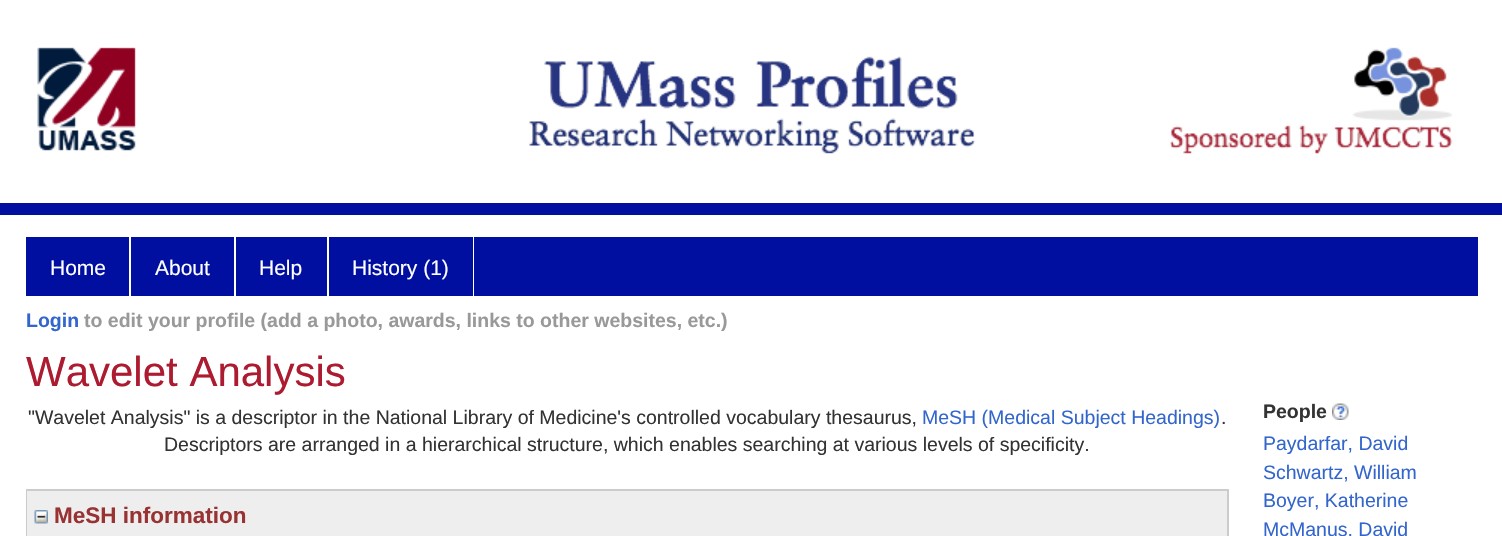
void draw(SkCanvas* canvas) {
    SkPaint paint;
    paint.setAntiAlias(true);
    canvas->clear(0xFFFFFFFF);
    paint.setColor(0xFF000F9F);
    canvas->drawRect(SkRect::MakeXYWH(0, 203, 1502, 12), paint);
    canvas->drawImageRect(SkImages::DeferredFromEncodedData(SkData::MakeFromFileName("img1.png")), SkRect::MakeXYWH(37, 47, 1416, 107), SkSamplingOptions());
    canvas->drawRect(SkRect::MakeXYWH(26, 237, 1452, 59), paint);
    paint.setColor(0xFFFFFFFF);
    canvas->drawRect(SkRect::MakeXYWH(129, 237, 2, 59), paint);
    SkFont font1(fontMgr->matchFamilyStyle("Liberation Sans", SkFontStyle::Normal()), 21);
    font1.setSubpixel(true);
    canvas->drawString("Home", 50, 275, font1, paint);
    canvas->drawRect(SkRect::MakeXYWH(234, 237, 2, 59), paint);
    canvas->drawString("About", 155, 275, font1, paint);
    canvas->drawRect(SkRect::MakeXYWH(327, 237, 2, 59), paint);
    canvas->drawString("Help", 259, 275, font1, paint);
    canvas->drawRect(SkRect::MakeXYWH(473, 237, 1, 59), paint);
    canvas->drawString("History (1)", 352, 275, font1, paint);
    SkFont font2(fontMgr->matchFamilyStyle("Liberation Sans", SkFontStyle::Bold()), 19.5f);
    font2.setSubpixel(true);
    paint.setColor(0xFF3366CC);
    canvas->drawString("Login", 26, 327, font2, paint);
    paint.setColor(0xFF999999);
    canvas->drawString("to edit your profile (add a photo, awards, links to other websites, etc.)", 84, 327, font2, paint);
    SkFont font3(fontMgr->matchFamilyStyle("Liberation Sans", SkFontStyle::Normal()), 42);
    font3.setSubpixel(true);
    paint.setColor(0xFFAC1B30);
    canvas->drawString("Wavelet Analysis", 26, 386, font3, paint);
    SkFont font4(fontMgr->matchFamilyStyle("Liberation Sans", SkFontStyle::Normal()), 19.5f);
    font4.setSubpixel(true);
    paint.setColor(0xFF333333);
    canvas->drawString("\"Wavelet Analysis\" is a descriptor in the National Library of Medicine's controlled vocabulary thesaurus,", 28, 424, font4, paint);
    paint.setColor(0xFF3366CC);
    canvas->drawString("MeSH (Medical Subject Headings)", 922, 424, font4, paint);
    paint.setColor(0xFF333333);
    canvas->drawString(".", 1221, 424, font4, paint);
    canvas->drawString("Descriptors are arranged in a hierarchical structure, which enables searching at various levels of specificity.", 164, 451, font4, paint);
    paint.setStyle(SkPaint::kStroke_Style);
    paint.setStrokeWidth(2);
    paint.setColor(0xFFCCCCCC);
    canvas->drawRect(SkRect::MakeXYWH(27, 490, 1201, 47), paint);
    paint.setStyle(SkPaint::kFill_Style);
    paint.setColor(0xFFEEEEEE);
    canvas->drawRect(SkRect::MakeXYWH(27, 491, 1200, 45), paint);
    canvas->drawImageRect(SkImages::DeferredFromEncodedData(SkData::MakeFromFileName("img2.png")), SkRect::MakeXYWH(34, 510, 14, 14), SkSamplingOptions());
    SkFont font5(fontMgr->matchFamilyStyle("Liberation Sans", SkFontStyle::Bold()), 22.5f);
    font5.setSubpixel(true);
    paint.setColor(0xFF993333);
    canvas->drawString("MeSH information", 54, 523, font5, paint);
    paint.setColor(0xFF333333);
    canvas->drawString("People", 1263, 418, font2, paint);
    canvas->drawImageRect(SkImages::DeferredFromEncodedData(SkData::MakeFromFileName("img3.png")), SkRect::MakeXYWH(1332, 403, 17, 17), SkSamplingOptions());
    paint.setColor(0xFF3366CC);
    canvas->drawString("Paydarfar, David", 1263, 450, font4, paint);
    canvas->drawString("Schwartz, William", 1263, 479, font4, paint);
    canvas->drawString("Boyer, Katherine", 1263, 507, font4, paint);
    canvas->drawString("McManus, David", 1263, 536, font4, paint);
}
